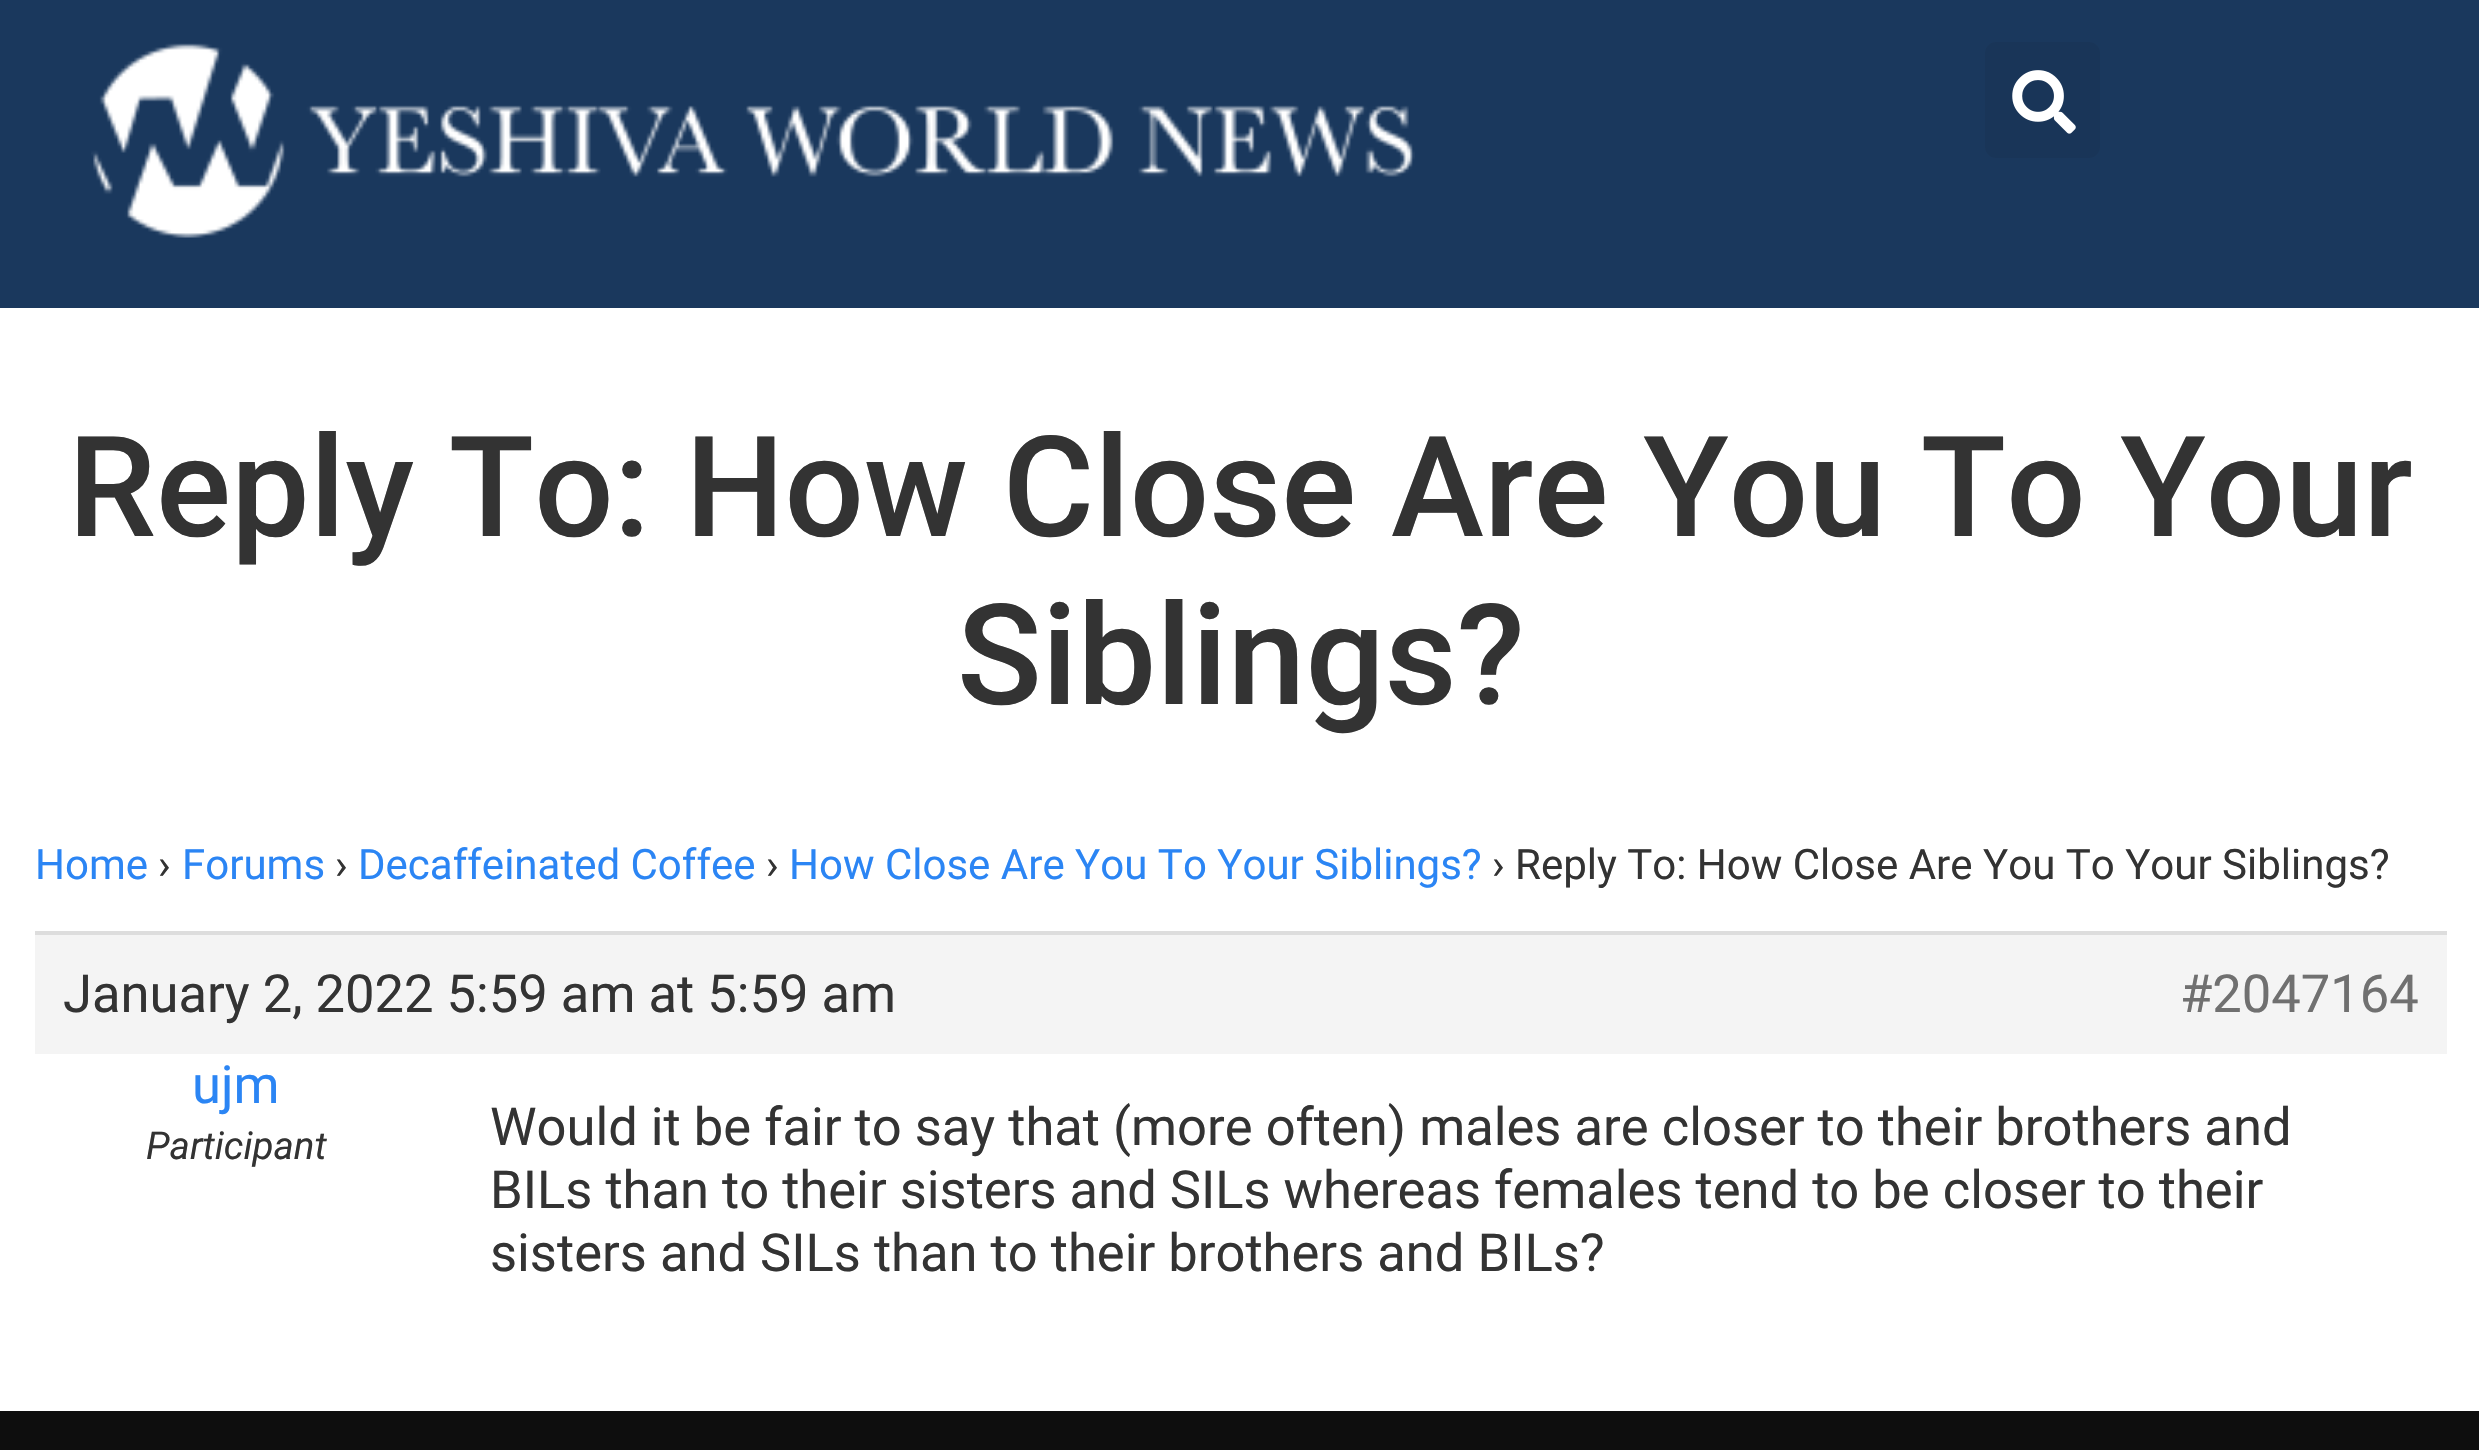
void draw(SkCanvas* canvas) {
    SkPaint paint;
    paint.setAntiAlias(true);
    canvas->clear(0xFFFFFFFF);
    paint.setColor(0xFF1A385D);
    canvas->drawRect(SkRect::MakeXYWH(0, 0, 2479, 308), paint);
    canvas->drawImageRect(SkImages::DeferredFromEncodedData(SkData::MakeFromFileName("img1.png")), SkRect::MakeXYWH(91, 43, 1324, 195), SkSamplingOptions());
    paint.setColor(0xFF193558);
    canvas->drawRoundRect(SkRect::MakeXYWH(1985, 42, 115, 116), 11, 11, paint);
    canvas->drawImageRect(SkImages::DeferredFromEncodedData(SkData::MakeFromFileName("img2.png")), SkRect::MakeXYWH(2012, 70, 64, 64), SkSamplingOptions());
    SkFont font1(fontMgr->matchFamilyStyle("Roboto", SkFontStyle(500, SkFontStyle::kNormal_Width, SkFontStyle::kUpright_Slant)), 140);
    font1.setSubpixel(true);
    paint.setColor(0xFF333333);
    canvas->drawString("Reply To: How Close Are You To Your", 68, 536, font1, paint);
    canvas->drawString("Siblings?", 957, 704, font1, paint);
    SkFont font2(fontMgr->matchFamilyStyle("Roboto", SkFontStyle::Normal()), 42);
    font2.setSubpixel(true);
    paint.setColor(0xFF2B85F4);
    canvas->drawString("Home", 35, 879, font2, paint);
    paint.setColor(0xFF333333);
    canvas->drawString("›", 158, 879, font2, paint);
    paint.setColor(0xFF2B85F4);
    canvas->drawString("Forums", 182, 879, font2, paint);
    paint.setColor(0xFF333333);
    canvas->drawString("›", 335, 879, font2, paint);
    paint.setColor(0xFF2B85F4);
    canvas->drawString("Decaffeinated Coffee", 358, 879, font2, paint);
    paint.setColor(0xFF333333);
    canvas->drawString("›", 766, 879, font2, paint);
    paint.setColor(0xFF2B85F4);
    canvas->drawString("How Close Are You To Your Siblings?", 789, 879, font2, paint);
    paint.setColor(0xFF333333);
    canvas->drawString("› Reply To: How Close Are You To Your Siblings?", 1492, 879, font2, paint);
    paint.setColor(0xFFF4F4F4);
    canvas->drawRect(SkRect::MakeXYWH(35, 935, 2412, 119), paint);
    paint.setColor(0xFFDDDDDD);
    canvas->drawRect(SkRect::MakeXYWH(35, 931, 2412, 4), paint);
    SkFont font3(fontMgr->matchFamilyStyle("Roboto", SkFontStyle::Normal()), 52.5f);
    font3.setSubpixel(true);
    paint.setColor(0xFF333333);
    canvas->drawString("January 2, 2022 5:59 am at 5:59 am", 63, 1012, font3, paint);
    paint.setColor(0xFF707070);
    canvas->drawString("#2047164", 2180, 1012, font3, paint);
    paint.setColor(0xFF2B85F4);
    canvas->drawString("ujm", 192, 1103, font3, paint);
    SkFont font4(fontMgr->matchFamilyStyle("Roboto", SkFontStyle::Italic()), 38.5f);
    font4.setSubpixel(true);
    paint.setColor(0xFF333333);
    canvas->drawString("Participant", 146, 1159, font4, paint);
    canvas->drawString("Would it be fair to say that (more often) males are closer to their brothers and", 490, 1145, font3, paint);
    canvas->drawString("BILs than to their sisters and SILs whereas females tend to be closer to their", 490, 1208, font3, paint);
    canvas->drawString("sisters and SILs than to their brothers and BILs?", 490, 1271, font3, paint);
    paint.setColor(0xFF0E0E0E);
    canvas->drawRect(SkRect::MakeXYWH(0, 1411, 2479, 39), paint);
}
